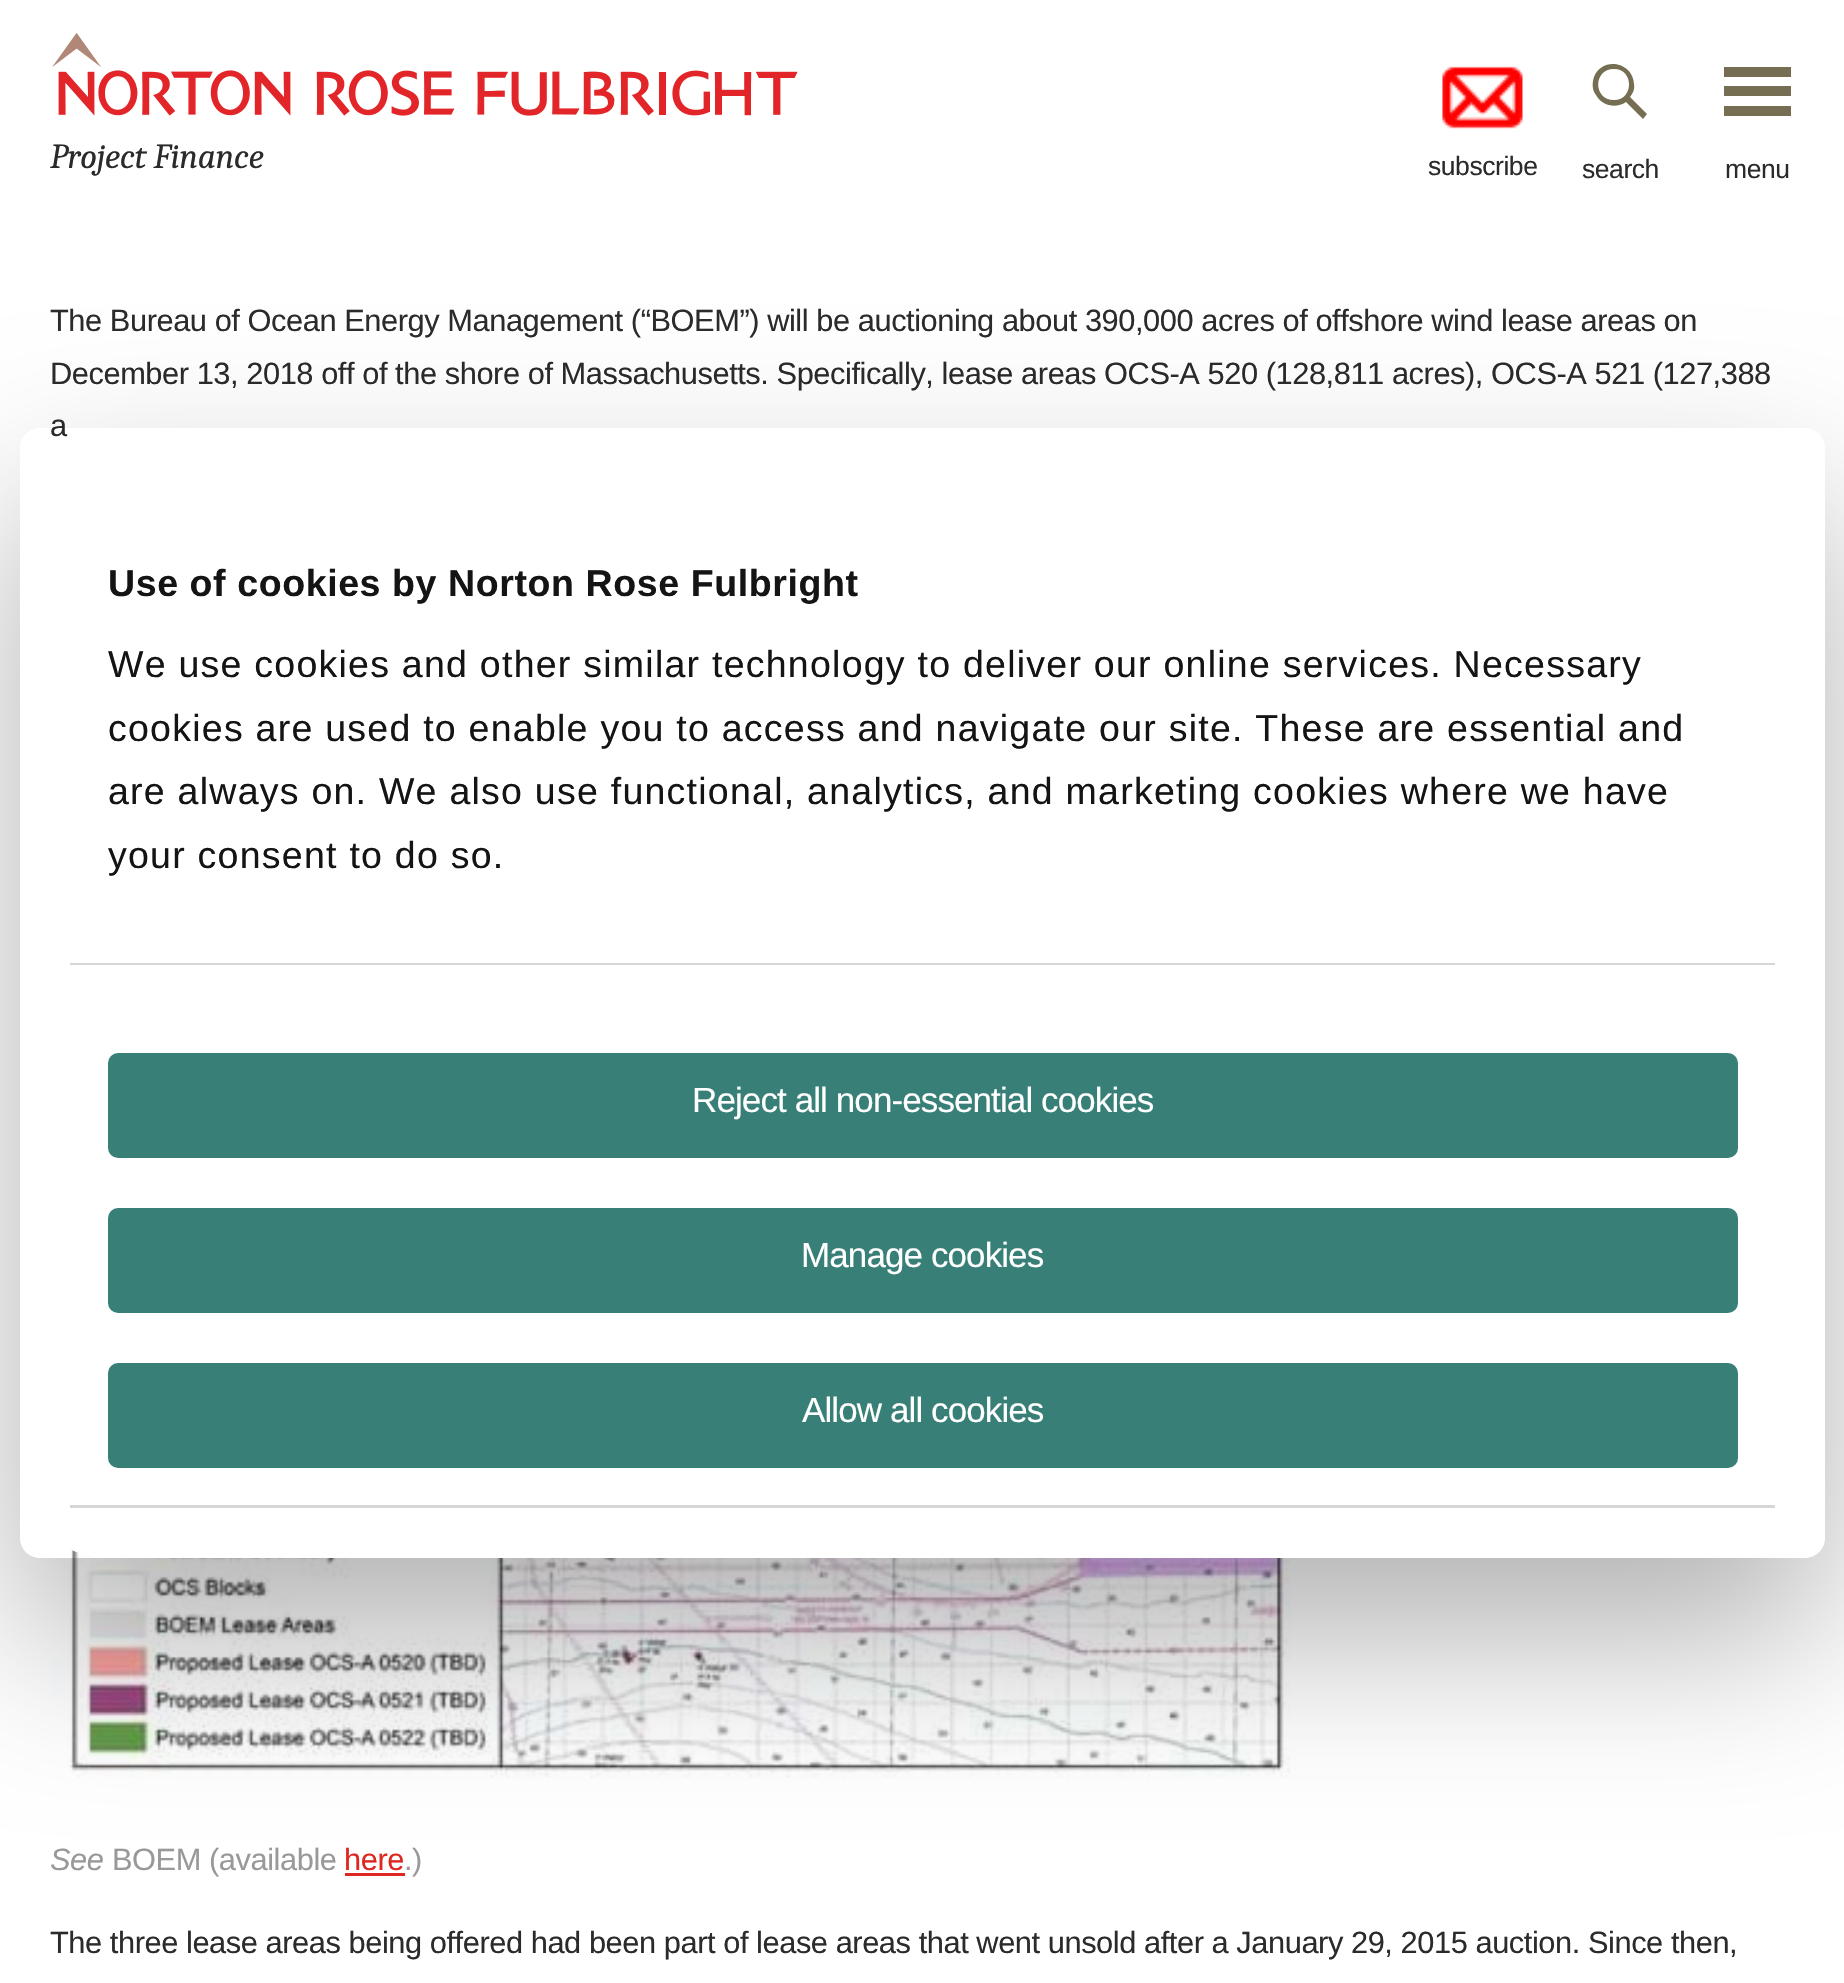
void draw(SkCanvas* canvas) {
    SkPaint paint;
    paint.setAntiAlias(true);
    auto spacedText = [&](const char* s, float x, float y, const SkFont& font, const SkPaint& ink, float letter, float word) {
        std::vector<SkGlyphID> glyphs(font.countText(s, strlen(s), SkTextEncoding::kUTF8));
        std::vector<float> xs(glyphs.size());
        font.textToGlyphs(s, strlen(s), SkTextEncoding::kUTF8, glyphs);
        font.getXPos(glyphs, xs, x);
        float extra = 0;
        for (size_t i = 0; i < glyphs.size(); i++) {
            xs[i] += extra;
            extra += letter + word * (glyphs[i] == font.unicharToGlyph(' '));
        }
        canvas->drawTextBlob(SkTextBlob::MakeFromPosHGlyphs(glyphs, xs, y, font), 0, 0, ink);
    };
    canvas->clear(0xFFFFFFFF);
    canvas->drawImageRect(SkImages::DeferredFromEncodedData(SkData::MakeFromFileName("img1.png")), SkRect::MakeXYWH(52, 33, 746, 83), SkSamplingOptions());
    SkFont font1(fontMgr->matchFamilyStyle("Caladea", SkFontStyle::Italic()), 35.25f);
    font1.setSubpixel(true);
    paint.setColor(0xFF2B2B2B);
    spacedText("Project Finance", 50, 168, font1, paint, -0.44f, 0);
    canvas->drawImageRect(SkImages::DeferredFromEncodedData(SkData::MakeFromFileName("img2.png")), SkRect::MakeXYWH(1442, 66, 81, 63), SkSamplingOptions());
    SkFont font2(fontMgr->matchFamilyStyle("Liberation Sans", SkFontStyle::Normal()), 26.5f);
    font2.setSubpixel(true);
    spacedText("subscribe", 1428, 175, font2, paint, -0.44f, 0);
    paint.setColor(0xFF756E52);
    canvas->drawPath(SkPathBuilder().moveTo(1647, 114).lineTo(1630, 97).cubicTo(1633, 93, 1635, 89, 1634, 84).cubicTo(1633, 62, 1602, 56, 1594, 77).cubicTo(1592, 83, 1592, 90, 1596, 95).cubicTo(1602, 106, 1616, 109, 1626, 102).lineTo(1643, 119).close().moveTo(1614, 100).cubicTo(1593, 100, 1593, 69, 1614, 69).cubicTo(1634, 69, 1634, 100, 1614, 100).close().detach(), paint);
    paint.setColor(0xFF2B2B2B);
    spacedText("search", 1582, 178, font2, paint, -0.44f, 0);
    paint.setColor(0xFF756E52);
    canvas->drawPath(SkPathBuilder().moveTo(1791, 77).lineTo(1724, 77).lineTo(1724, 67).lineTo(1791, 67).close().moveTo(1791, 86).lineTo(1724, 86).lineTo(1724, 96).lineTo(1791, 96).close().moveTo(1791, 106).lineTo(1724, 106).lineTo(1724, 116).lineTo(1791, 116).close().detach(), paint);
    paint.setColor(0xFF2B2B2B);
    spacedText("menu", 1725, 178, font2, paint, -0.44f, 0);
    SkFont font3(fontMgr->matchFamilyStyle("Liberation Sans", SkFontStyle::Normal()), 30.8f);
    font3.setSubpixel(true);
    spacedText("The Bureau of Ocean Energy Management (“BOEM”) will be auctioning about 390,000 acres of offshore wind lease areas on", 50, 331, font3, paint, -0.44f, 0);
    spacedText("December 13, 2018 off of the shore of Massachusetts. Specifically, lease areas OCS-A 520 (128,811 acres), OCS-A 521 (127,388", 50, 384, font3, paint, -0.44f, 0);
    spacedText("a", 50, 436, font3, paint, -0.44f, 0);
    canvas->drawImageRect(SkImages::DeferredFromEncodedData(SkData::MakeFromFileName("img3.png")), SkRect::MakeXYWH(50, 1536, 1241, 242), SkSamplingOptions());
    SkFont font4(fontMgr->matchFamilyStyle("Liberation Sans", SkFontStyle::Italic()), 30.8f);
    font4.setSubpixel(true);
    paint.setColor(0xFF999999);
    spacedText("See", 50, 1870, font4, paint, -0.44f, 0);
    spacedText("BOEM (available", 112, 1870, font3, paint, -0.44f, 0);
    paint.setColor(0xFFDD2720);
    spacedText("here", 344, 1870, font3, paint, -0.44f, 0);
    paint.setColor(0xFF999999);
    spacedText(".)", 404, 1870, font3, paint, -0.44f, 0);
    paint.setColor(0xFFDD2720);
    canvas->drawRect(SkRect::MakeXYWH(345, 1873, 60, 3), paint);
    paint.setColor(0xFF2B2B2B);
    spacedText("The three lease areas being offered had been part of lease areas that went unsold after a January 29, 2015 auction. Since then,", 50, 1953, font3, paint, -0.44f, 0);
    canvas->save();
    canvas->clipPath(SkPathBuilder(SkPathFillType::kEvenOdd).moveTo(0, 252).lineTo(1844, 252).lineTo(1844, 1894).lineTo(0, 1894).close().moveTo(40, 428).lineTo(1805, 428).cubicTo(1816, 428, 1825, 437, 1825, 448).lineTo(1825, 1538).cubicTo(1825, 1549, 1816, 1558, 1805, 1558).lineTo(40, 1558).cubicTo(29, 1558, 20, 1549, 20, 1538).lineTo(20, 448).cubicTo(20, 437, 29, 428, 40, 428).close().detach(), true);
    paint.setColor(0x4D000000);
    paint.setMaskFilter(SkMaskFilter::MakeBlur(kNormal_SkBlurStyle, 85));
    canvas->drawRoundRect(SkRect::MakeXYWH(20, 508, 1805, 1130), 20, 20, paint);
    paint.setMaskFilter(nullptr);
    canvas->restore();
    paint.setColor(0xFFFFFFFF);
    canvas->drawRoundRect(SkRect::MakeXYWH(20, 428, 1805, 1130), 88, 88, paint);
    paint.setColor(0xFFD6D6D6);
    canvas->drawRect(SkRect::MakeXYWH(70, 963, 1705, 2), paint);
    SkFont font5(fontMgr->matchFamilyStyle("Liberation Sans", SkFontStyle::Bold()), 37.5f);
    font5.setSubpixel(true);
    paint.setColor(0xFF141414);
    spacedText("Use of cookies by Norton Rose Fulbright", 108, 596, font5, paint, 0.6f, 0);
    SkFont font6(fontMgr->matchFamilyStyle("Liberation Sans", SkFontStyle::Normal()), 37.5f);
    font6.setSubpixel(true);
    spacedText("We use cookies and other similar technology to deliver our online services. Necessary", 108, 677, font6, paint, 1.25f, 0);
    spacedText("cookies are used to enable you to access and navigate our site. These are essential and", 108, 741, font6, paint, 1.25f, 0);
    spacedText("are always on. We also use functional, analytics, and marketing cookies where we have", 108, 804, font6, paint, 1.25f, 0);
    spacedText("your consent to do so.", 108, 868, font6, paint, 1.25f, 0);
    paint.setColor(0xFFD6D6D6);
    canvas->drawRect(SkRect::MakeXYWH(70, 1505, 1705, 3), paint);
    paint.setColor(0xFF388077);
    canvas->drawRoundRect(SkRect::MakeXYWH(108, 1053, 1630, 105), 10, 10, paint);
    SkFont font7(fontMgr->matchFamilyStyle("Liberation Sans", SkFontStyle::Normal()), 35);
    font7.setSubpixel(true);
    paint.setColor(0xFFFFFFFF);
    spacedText("Reject all non-essential cookies", 692, 1112, font7, paint, -0.9f, 0);
    paint.setColor(0xFF388077);
    canvas->drawRoundRect(SkRect::MakeXYWH(108, 1208, 1630, 105), 10, 10, paint);
    paint.setColor(0xFFFFFFFF);
    spacedText("Manage cookies", 801, 1267, font7, paint, -0.9f, 0);
    paint.setColor(0xFF388077);
    canvas->drawRoundRect(SkRect::MakeXYWH(108, 1363, 1630, 105), 10, 10, paint);
    paint.setColor(0xFFFFFFFF);
    spacedText("Allow all cookies", 802, 1422, font7, paint, -0.9f, 0);
}
